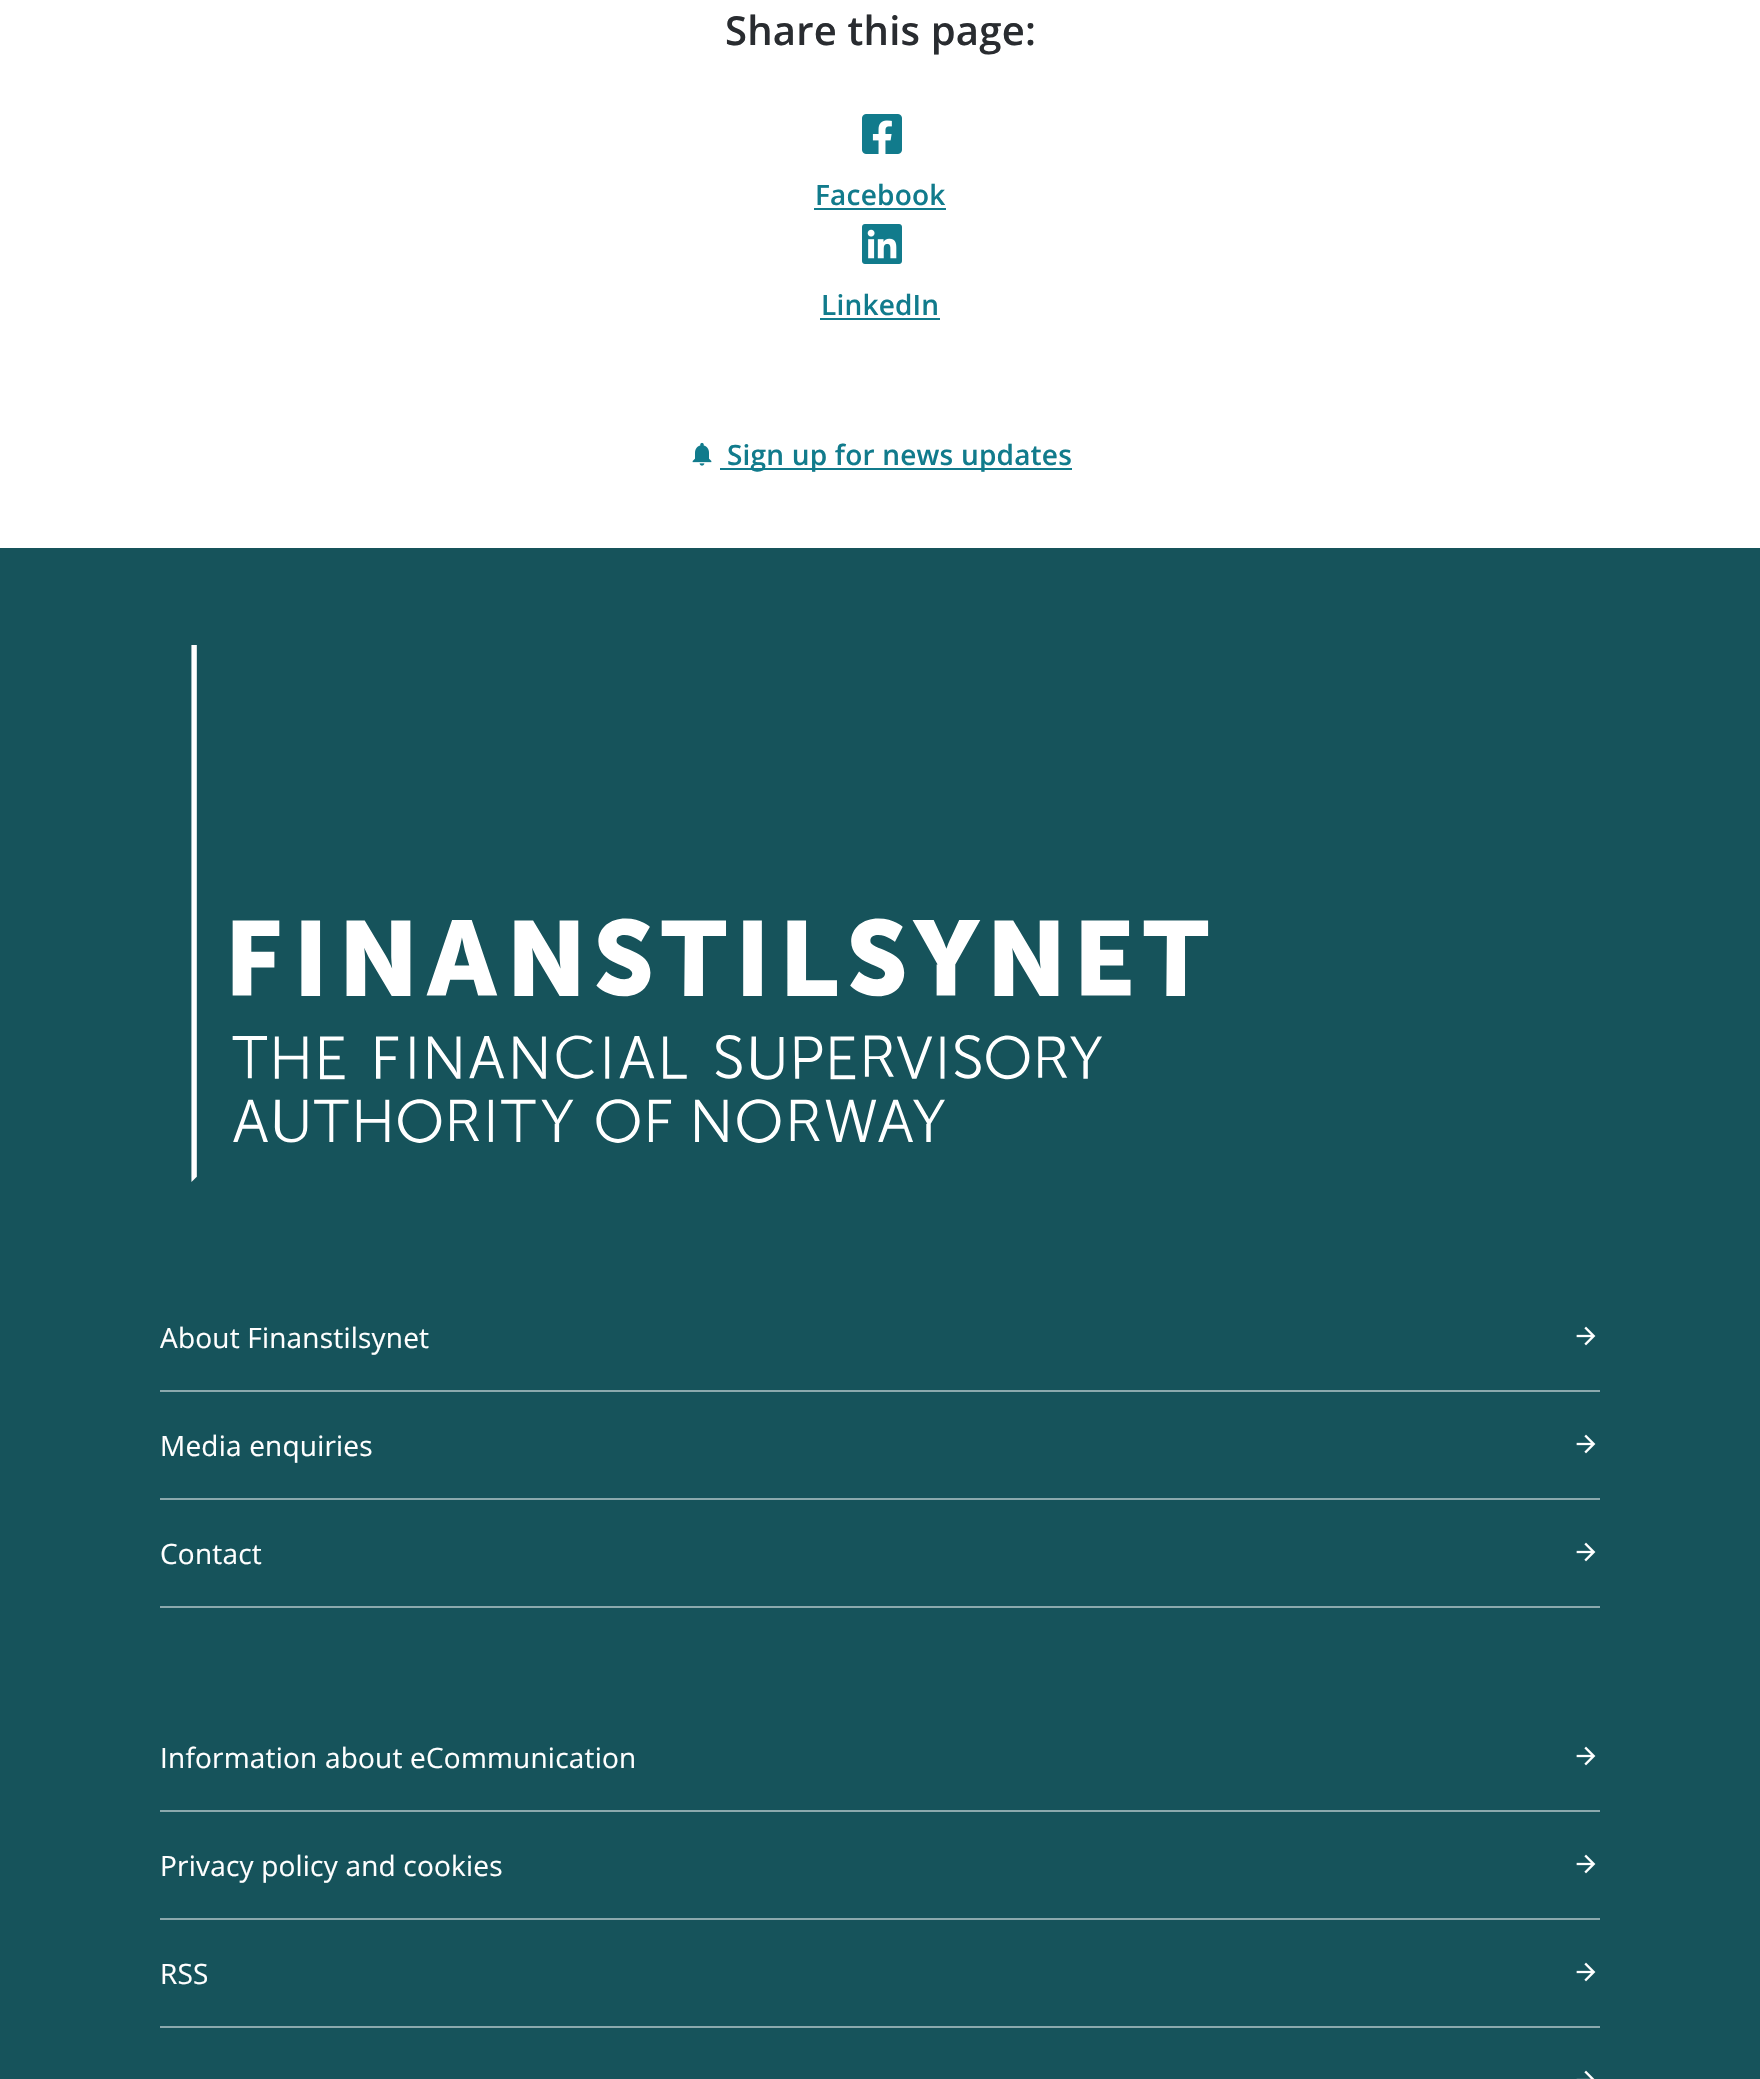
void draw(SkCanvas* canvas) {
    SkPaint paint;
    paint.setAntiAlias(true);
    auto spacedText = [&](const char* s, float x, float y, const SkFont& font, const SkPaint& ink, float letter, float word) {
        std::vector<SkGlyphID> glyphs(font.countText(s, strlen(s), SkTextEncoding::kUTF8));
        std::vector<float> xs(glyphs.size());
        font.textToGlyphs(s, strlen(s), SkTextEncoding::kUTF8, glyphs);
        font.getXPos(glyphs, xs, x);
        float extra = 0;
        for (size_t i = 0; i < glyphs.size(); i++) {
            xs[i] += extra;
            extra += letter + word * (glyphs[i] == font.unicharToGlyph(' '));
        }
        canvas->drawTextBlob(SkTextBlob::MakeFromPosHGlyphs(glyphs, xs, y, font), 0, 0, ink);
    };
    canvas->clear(0xFFFFFFFF);
    SkFont font1(fontMgr->matchFamilyStyle("Open Sans", SkFontStyle(600, SkFontStyle::kNormal_Width, SkFontStyle::kUpright_Slant)), 40);
    font1.setSubpixel(true);
    paint.setColor(0xFF292C30);
    spacedText("Share this page:", 725, 45, font1, paint, 0.2f, 0);
    canvas->drawImageRect(SkImages::DeferredFromEncodedData(SkData::MakeFromFileName("img1.png")), SkRect::MakeXYWH(862, 114, 40, 40), SkSamplingOptions());
    SkFont font2(fontMgr->matchFamilyStyle("Open Sans", SkFontStyle(600, SkFontStyle::kNormal_Width, SkFontStyle::kUpright_Slant)), 28);
    font2.setSubpixel(true);
    paint.setColor(0xFF117B8C);
    spacedText("Facebook", 815, 205, font2, paint, 0.2f, 0);
    canvas->drawRect(SkRect::MakeXYWH(814, 208, 132, 2), paint);
    canvas->drawImageRect(SkImages::DeferredFromEncodedData(SkData::MakeFromFileName("img2.png")), SkRect::MakeXYWH(862, 224, 40, 40), SkSamplingOptions());
    spacedText("LinkedIn", 821, 315, font2, paint, 0.2f, 0);
    canvas->drawRect(SkRect::MakeXYWH(820, 318, 120, 2), paint);
    canvas->drawImageRect(SkImages::DeferredFromEncodedData(SkData::MakeFromFileName("img3.png")), SkRect::MakeXYWH(692, 442, 20, 24), SkSamplingOptions());
    canvas->drawRect(SkRect::MakeXYWH(720, 468, 352, 2), paint);
    spacedText("Sign up for news updates", 727, 465, font2, paint, 0.2f, 0);
    paint.setColor(0xFF16535B);
    canvas->drawRect(SkRect::MakeXYWH(0, 548, 1760, 1531), paint);
    canvas->drawImageRect(SkImages::DeferredFromEncodedData(SkData::MakeFromFileName("img4.png")), SkRect::MakeXYWH(191, 645, 1018, 537), SkSamplingOptions());
    paint.setColor(0xFF8BA9AD);
    canvas->drawRect(SkRect::MakeXYWH(160, 1390, 1440, 2), paint);
    SkFont font3(fontMgr->matchFamilyStyle("Open Sans", SkFontStyle::Normal()), 28);
    font3.setSubpixel(true);
    paint.setColor(0xFFFFFFFF);
    spacedText("About Finanstilsynet", 160, 1348, font3, paint, 0.2f, 0);
    canvas->drawImageRect(SkImages::DeferredFromEncodedData(SkData::MakeFromFileName("img5.png")), SkRect::MakeXYWH(1576, 1326, 20, 20), SkSamplingOptions());
    paint.setColor(0xFF8BA9AD);
    canvas->drawRect(SkRect::MakeXYWH(160, 1498, 1440, 2), paint);
    paint.setColor(0xFFFFFFFF);
    spacedText("Media enquiries", 160, 1456, font3, paint, 0.2f, 0);
    canvas->drawImageRect(SkImages::DeferredFromEncodedData(SkData::MakeFromFileName("img5.png")), SkRect::MakeXYWH(1576, 1434, 20, 20), SkSamplingOptions());
    paint.setColor(0xFF8BA9AD);
    canvas->drawRect(SkRect::MakeXYWH(160, 1606, 1440, 2), paint);
    paint.setColor(0xFFFFFFFF);
    spacedText("Contact", 160, 1564, font3, paint, 0.2f, 0);
    canvas->drawImageRect(SkImages::DeferredFromEncodedData(SkData::MakeFromFileName("img5.png")), SkRect::MakeXYWH(1576, 1542, 20, 20), SkSamplingOptions());
    paint.setColor(0xFF8BA9AD);
    canvas->drawRect(SkRect::MakeXYWH(160, 1810, 1440, 2), paint);
    paint.setColor(0xFFFFFFFF);
    spacedText("Information about eCommunication", 160, 1768, font3, paint, 0.2f, 0);
    canvas->drawImageRect(SkImages::DeferredFromEncodedData(SkData::MakeFromFileName("img5.png")), SkRect::MakeXYWH(1576, 1746, 20, 20), SkSamplingOptions());
    paint.setColor(0xFF8BA9AD);
    canvas->drawRect(SkRect::MakeXYWH(160, 1918, 1440, 2), paint);
    paint.setColor(0xFFFFFFFF);
    spacedText("Privacy policy and cookies", 160, 1876, font3, paint, 0.2f, 0);
    canvas->drawImageRect(SkImages::DeferredFromEncodedData(SkData::MakeFromFileName("img5.png")), SkRect::MakeXYWH(1576, 1854, 20, 20), SkSamplingOptions());
    paint.setColor(0xFF8BA9AD);
    canvas->drawRect(SkRect::MakeXYWH(160, 2026, 1440, 2), paint);
    paint.setColor(0xFFFFFFFF);
    spacedText("RSS", 160, 1984, font3, paint, 0.2f, 0);
    canvas->drawImageRect(SkImages::DeferredFromEncodedData(SkData::MakeFromFileName("img5.png")), SkRect::MakeXYWH(1576, 1962, 20, 20), SkSamplingOptions());
    canvas->drawImageRect(SkImages::DeferredFromEncodedData(SkData::MakeFromFileName("img6.png")), SkRect::MakeXYWH(1576, 2070, 19, 9), SkSamplingOptions());
}
